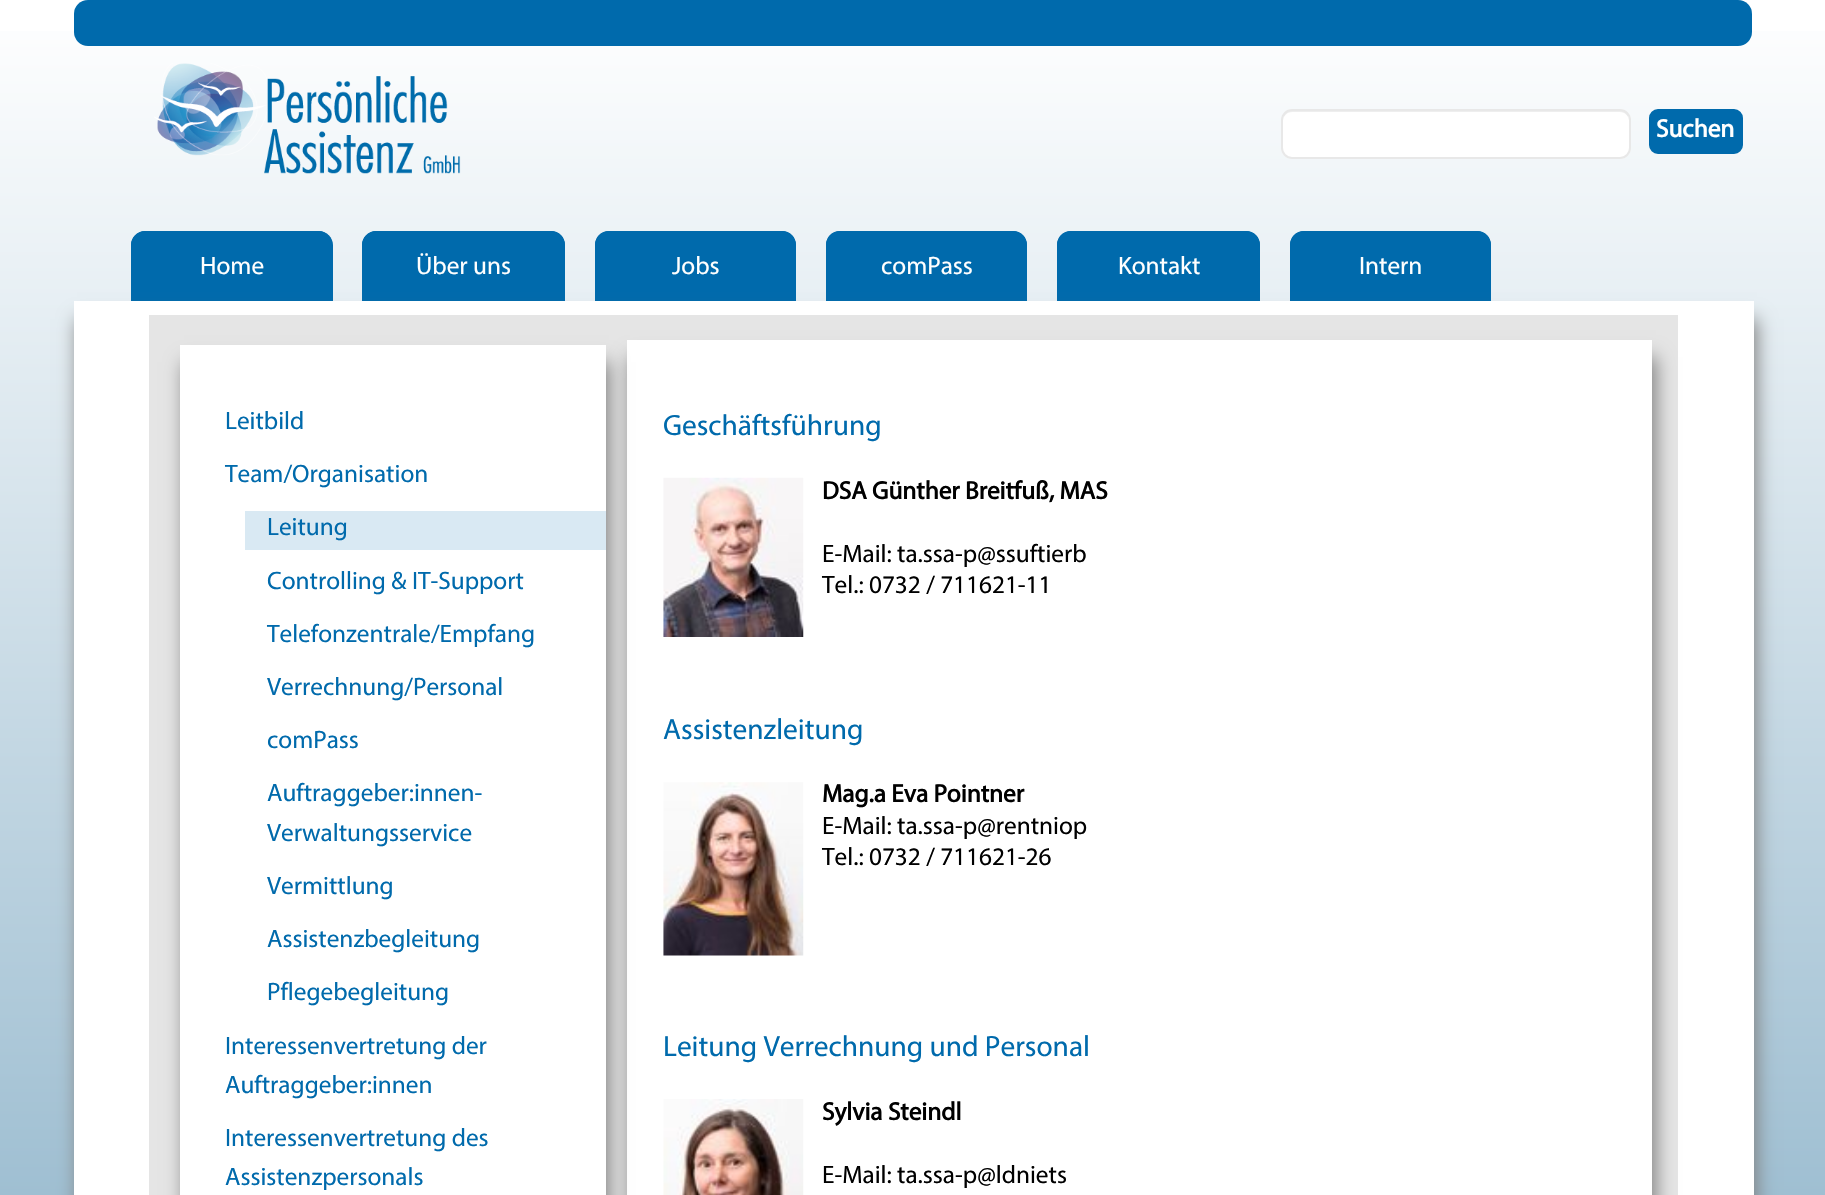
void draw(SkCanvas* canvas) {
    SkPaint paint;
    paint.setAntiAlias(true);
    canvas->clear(0xFFFFFFFF);
    {
        const SkColor colors[] = {0xFFFFFFFF, 0xFF9FBFD2};
        const float stops[] = {0, 1};
        const SkPoint ends[] = {{913, 0}, {913, 1195}};
        paint.setShader(SkGradientShader::MakeLinear(ends, colors, stops, 2, SkTileMode::kClamp));
        paint.setAlpha(255);
    }
    canvas->drawRect(SkRect::MakeXYWH(0, 31, 1825, 1164), paint);
    paint.setShader(nullptr);
    paint.setColor(0xFF006AAC);
    canvas->drawRoundRect(SkRect::MakeXYWH(74, 0, 1678, 46), 14, 14, paint);
    canvas->drawImageRect(SkImages::DeferredFromEncodedData(SkData::MakeFromFileName("img1.png")), SkRect::MakeXYWH(154, 63, 307, 111), SkSamplingOptions());
    paint.setColor(0xFFFFFFFF);
    canvas->drawRoundRect(SkRect::MakeXYWH(1281, 109, 350, 50), 11, 11, paint);
    paint.setColor(0xFFEEEEEE);
    canvas->drawPath(SkPathBuilder().moveTo(1292, 112).lineTo(1620, 112).cubicTo(1625, 112, 1629, 116, 1629, 121).cubicTo(1629, 116, 1627, 111, 1622, 110).lineTo(1290, 110).cubicTo(1285, 111, 1283, 116, 1283, 121).cubicTo(1283, 116, 1287, 112, 1292, 112).close().detach(), paint);
    paint.setStyle(SkPaint::kStroke_Style);
    paint.setStrokeWidth(2);
    paint.setColor(0xFFE8E8E8);
    canvas->drawRoundRect(SkRect::MakeXYWH(1282, 110, 348, 48), 10, 10, paint);
    paint.setStyle(SkPaint::kFill_Style);
    paint.setColor(0xFF006AAC);
    canvas->drawRoundRect(SkRect::MakeXYWH(1650, 110, 92, 43), 8, 8, paint);
    paint.setStyle(SkPaint::kStroke_Style);
    canvas->drawRoundRect(SkRect::MakeXYWH(1650, 110, 92, 43), 8, 8, paint);
    SkFont font1(fontMgr->matchFamilyStyle("Myriad", SkFontStyle::Bold()), 25.25f);
    font1.setSubpixel(true);
    paint.setStyle(SkPaint::kFill_Style);
    paint.setColor(0xFFFFFFFF);
    canvas->drawString("Suchen", 1656, 137, font1, paint);
    paint.setColor(0xFF006AAC);
    canvas->drawPath(SkPathBuilder().moveTo(145, 231).lineTo(319, 231).cubicTo(326.5f, 231, 333, 237.5f, 333, 245).lineTo(333, 301).lineTo(131, 301).lineTo(131, 245).cubicTo(131, 237.5f, 137.5f, 231, 145, 231).close().detach(), paint);
    canvas->drawPath(SkPathBuilder(SkPathFillType::kEvenOdd).moveTo(145, 231).lineTo(318, 231).cubicTo(326, 231, 332, 237, 332, 245).lineTo(332, 324).lineTo(131, 324).lineTo(131, 245).cubicTo(131, 237, 138, 231, 145, 231).close().moveTo(145, 233).lineTo(318, 233).cubicTo(325, 233, 331, 238, 331, 245).lineTo(331, 324).lineTo(133, 324).lineTo(133, 245).cubicTo(133, 238, 138, 233, 145, 233).close().detach(), paint);
    SkFont font2(fontMgr->matchFamilyStyle("Myriad", SkFontStyle::Normal()), 25.25f);
    font2.setSubpixel(true);
    paint.setColor(0xFFFFFFFF);
    canvas->drawString("Home", 200, 274, font2, paint);
    paint.setColor(0xFF006AAC);
    canvas->drawPath(SkPathBuilder().moveTo(376, 231).lineTo(551, 231).cubicTo(558.5f, 231, 565, 237.5f, 565, 245).lineTo(565, 301).lineTo(362, 301).lineTo(362, 245).cubicTo(362, 237.5f, 368.5f, 231, 376, 231).close().detach(), paint);
    canvas->drawPath(SkPathBuilder(SkPathFillType::kEvenOdd).moveTo(376, 231).lineTo(551, 231).cubicTo(559, 231, 565, 237, 565, 245).lineTo(565, 324).lineTo(362, 324).lineTo(362, 245).cubicTo(362, 237, 369, 231, 376, 231).close().moveTo(376, 233).lineTo(551, 233).cubicTo(558, 233, 564, 238, 564, 245).lineTo(564, 324).lineTo(364, 324).lineTo(364, 245).cubicTo(364, 238, 369, 233, 376, 233).close().detach(), paint);
    paint.setColor(0xFFFFFFFF);
    canvas->drawString("Über uns", 416, 274, font2, paint);
    paint.setColor(0xFF006AAC);
    canvas->drawPath(SkPathBuilder().moveTo(609, 231).lineTo(782, 231).cubicTo(789.5f, 231, 796, 237.5f, 796, 245).lineTo(796, 301).lineTo(595, 301).lineTo(595, 245).cubicTo(595, 237.5f, 601.5f, 231, 609, 231).close().detach(), paint);
    canvas->drawPath(SkPathBuilder(SkPathFillType::kEvenOdd).moveTo(609, 231).lineTo(782, 231).cubicTo(790, 231, 796, 237, 796, 245).lineTo(796, 324).lineTo(595, 324).lineTo(595, 245).cubicTo(595, 237, 601, 231, 609, 231).close().moveTo(609, 233).lineTo(782, 233).cubicTo(789, 233, 794, 238, 794, 245).lineTo(794, 324).lineTo(597, 324).lineTo(597, 245).cubicTo(597, 238, 602, 233, 609, 233).close().detach(), paint);
    paint.setColor(0xFFFFFFFF);
    canvas->drawString("Jobs", 672, 274, font2, paint);
    paint.setColor(0xFF006AAC);
    canvas->drawPath(SkPathBuilder().moveTo(840, 231).lineTo(1013, 231).cubicTo(1020.5f, 231, 1027, 237.5f, 1027, 245).lineTo(1027, 301).lineTo(826, 301).lineTo(826, 245).cubicTo(826, 237.5f, 832.5f, 231, 840, 231).close().detach(), paint);
    canvas->drawPath(SkPathBuilder(SkPathFillType::kEvenOdd).moveTo(840, 231).lineTo(1013, 231).cubicTo(1021, 231, 1027, 237, 1027, 245).lineTo(1027, 324).lineTo(826, 324).lineTo(826, 245).cubicTo(826, 237, 832, 231, 840, 231).close().moveTo(840, 233).lineTo(1013, 233).cubicTo(1020, 233, 1026, 238, 1026, 245).lineTo(1026, 324).lineTo(828, 324).lineTo(828, 245).cubicTo(828, 238, 833, 233, 840, 233).close().detach(), paint);
    paint.setColor(0xFFFFFFFF);
    canvas->drawString("comPass", 881, 274, font2, paint);
    paint.setColor(0xFF006AAC);
    canvas->drawPath(SkPathBuilder().moveTo(1071, 231).lineTo(1246, 231).cubicTo(1253.5f, 231, 1260, 237.5f, 1260, 245).lineTo(1260, 301).lineTo(1057, 301).lineTo(1057, 245).cubicTo(1057, 237.5f, 1063.5f, 231, 1071, 231).close().detach(), paint);
    canvas->drawPath(SkPathBuilder(SkPathFillType::kEvenOdd).moveTo(1071, 231).lineTo(1246, 231).cubicTo(1254, 231, 1260, 237, 1260, 245).lineTo(1260, 324).lineTo(1057, 324).lineTo(1057, 245).cubicTo(1057, 237, 1063, 231, 1071, 231).close().moveTo(1071, 233).lineTo(1246, 233).cubicTo(1253, 233, 1258, 238, 1258, 245).lineTo(1258, 324).lineTo(1059, 324).lineTo(1059, 245).cubicTo(1059, 238, 1064, 233, 1071, 233).close().detach(), paint);
    paint.setColor(0xFFFFFFFF);
    canvas->drawString("Kontakt", 1118, 274, font2, paint);
    paint.setColor(0xFF006AAC);
    canvas->drawPath(SkPathBuilder().moveTo(1304, 231).lineTo(1477, 231).cubicTo(1484.5f, 231, 1491, 237.5f, 1491, 245).lineTo(1491, 301).lineTo(1290, 301).lineTo(1290, 245).cubicTo(1290, 237.5f, 1296.5f, 231, 1304, 231).close().detach(), paint);
    canvas->drawPath(SkPathBuilder(SkPathFillType::kEvenOdd).moveTo(1304, 231).lineTo(1477, 231).cubicTo(1485, 231, 1491, 237, 1491, 245).lineTo(1491, 324).lineTo(1290, 324).lineTo(1290, 245).cubicTo(1290, 237, 1296, 231, 1304, 231).close().moveTo(1304, 233).lineTo(1477, 233).cubicTo(1484, 233, 1489, 238, 1489, 245).lineTo(1489, 324).lineTo(1292, 324).lineTo(1292, 245).cubicTo(1292, 238, 1297, 233, 1304, 233).close().detach(), paint);
    paint.setColor(0xFFFFFFFF);
    canvas->drawString("Intern", 1359, 274, font2, paint);
    paint.setColor(0xFF808080);
    paint.setMaskFilter(SkMaskFilter::MakeBlur(kNormal_SkBlurStyle, 9));
    canvas->drawRect(SkRect::MakeXYWH(77, 319, 1680, 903), paint);
    paint.setMaskFilter(nullptr);
    paint.setColor(0xFFE5E5E5);
    canvas->drawRect(SkRect::MakeXYWH(149, 315, 1529, 880), paint);
    paint.setColor(0xFFFFFFFF);
    canvas->drawRect(SkRect::MakeXYWH(149, 301, 1529, 14), paint);
    canvas->drawRect(SkRect::MakeXYWH(1678, 301, 76, 894), paint);
    canvas->drawRect(SkRect::MakeXYWH(74, 301, 75, 894), paint);
    paint.setColor(0xFF808080);
    paint.setMaskFilter(SkMaskFilter::MakeBlur(kNormal_SkBlurStyle, 9));
    canvas->drawRect(SkRect::MakeXYWH(630, 357, 1026, 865), paint);
    paint.setMaskFilter(nullptr);
    paint.setColor(0xFFFFFFFF);
    canvas->drawRect(SkRect::MakeXYWH(627, 340, 1025, 855), paint);
    paint.setColor(0xFF808080);
    paint.setMaskFilter(SkMaskFilter::MakeBlur(kNormal_SkBlurStyle, 9));
    canvas->drawRect(SkRect::MakeXYWH(184, 362, 425, 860), paint);
    paint.setMaskFilter(nullptr);
    paint.setColor(0xFFFFFFFF);
    canvas->drawRect(SkRect::MakeXYWH(180, 345, 426, 850), paint);
    paint.setColor(0xFF006AAC);
    canvas->drawString("Leitbild", 225, 429, font2, paint);
    canvas->drawString("Team/Organisation", 225, 482, font2, paint);
    paint.setColor(0xFFD9E9F3);
    canvas->drawRect(SkRect::MakeXYWH(245, 511, 361, 39), paint);
    paint.setColor(0xFF006AAC);
    canvas->drawString("Leitung", 267, 535, font2, paint);
    canvas->drawString("Controlling & IT-Support", 267, 589, font2, paint);
    canvas->drawString("Telefonzentrale/Empfang", 267, 642, font2, paint);
    canvas->drawString("Verrechnung/Personal", 267, 695, font2, paint);
    canvas->drawString("comPass", 267, 748, font2, paint);
    canvas->drawString("Auftraggeber:innen-", 267, 801, font2, paint);
    canvas->drawString("Verwaltungsservice", 267, 841, font2, paint);
    canvas->drawString("Vermittlung", 267, 894, font2, paint);
    canvas->drawString("Assistenzbegleitung", 267, 947, font2, paint);
    canvas->drawString("Pflegebegleitung", 267, 1000, font2, paint);
    canvas->drawString("Interessenvertretung der", 225, 1054, font2, paint);
    canvas->drawString("Auftraggeber:innen", 225, 1093, font2, paint);
    canvas->drawString("Interessenvertretung des", 225, 1146, font2, paint);
    canvas->drawString("Assistenzpersonals", 225, 1185, font2, paint);
    SkFont font3(fontMgr->matchFamilyStyle("Myriad", SkFontStyle::Normal()), 29.4f);
    font3.setSubpixel(true);
    canvas->drawString("Geschäftsführung", 663, 435, font3, paint);
    canvas->drawImageRect(SkImages::DeferredFromEncodedData(SkData::MakeFromFileName("img2.png")), SkRect::MakeXYWH(663, 477, 141, 160), SkSamplingOptions());
    paint.setColor(0xFF000000);
    canvas->drawString("DSA Günther Breitfuß, MAS", 822, 499, font1, paint);
    canvas->drawString("E-Mail: ta.ssa-p@ssuftierb", 822, 562, font2, paint);
    canvas->drawString("Tel.: 0732 / 711621-11", 822, 593, font2, paint);
    paint.setColor(0xFF006AAC);
    canvas->drawString("Assistenzleitung", 663, 739, font3, paint);
    canvas->drawImageRect(SkImages::DeferredFromEncodedData(SkData::MakeFromFileName("img3.png")), SkRect::MakeXYWH(663, 782, 141, 174), SkSamplingOptions());
    paint.setColor(0xFF000000);
    canvas->drawString("Mag.a Eva Pointner", 822, 802, font1, paint);
    canvas->drawString("E-Mail: ta.ssa-p@rentniop", 822, 834, font2, paint);
    canvas->drawString("Tel.: 0732 / 711621-26", 822, 865, font2, paint);
    paint.setColor(0xFF006AAC);
    canvas->drawString("Leitung Verrechnung und Personal", 663, 1056, font3, paint);
    canvas->drawImageRect(SkImages::DeferredFromEncodedData(SkData::MakeFromFileName("img4.png")), SkRect::MakeXYWH(663, 1099, 141, 96), SkSamplingOptions());
    paint.setColor(0xFF000000);
    canvas->drawString("Sylvia Steindl", 822, 1120, font1, paint);
    canvas->drawString("E-Mail: ta.ssa-p@ldniets", 822, 1183, font2, paint);
}
